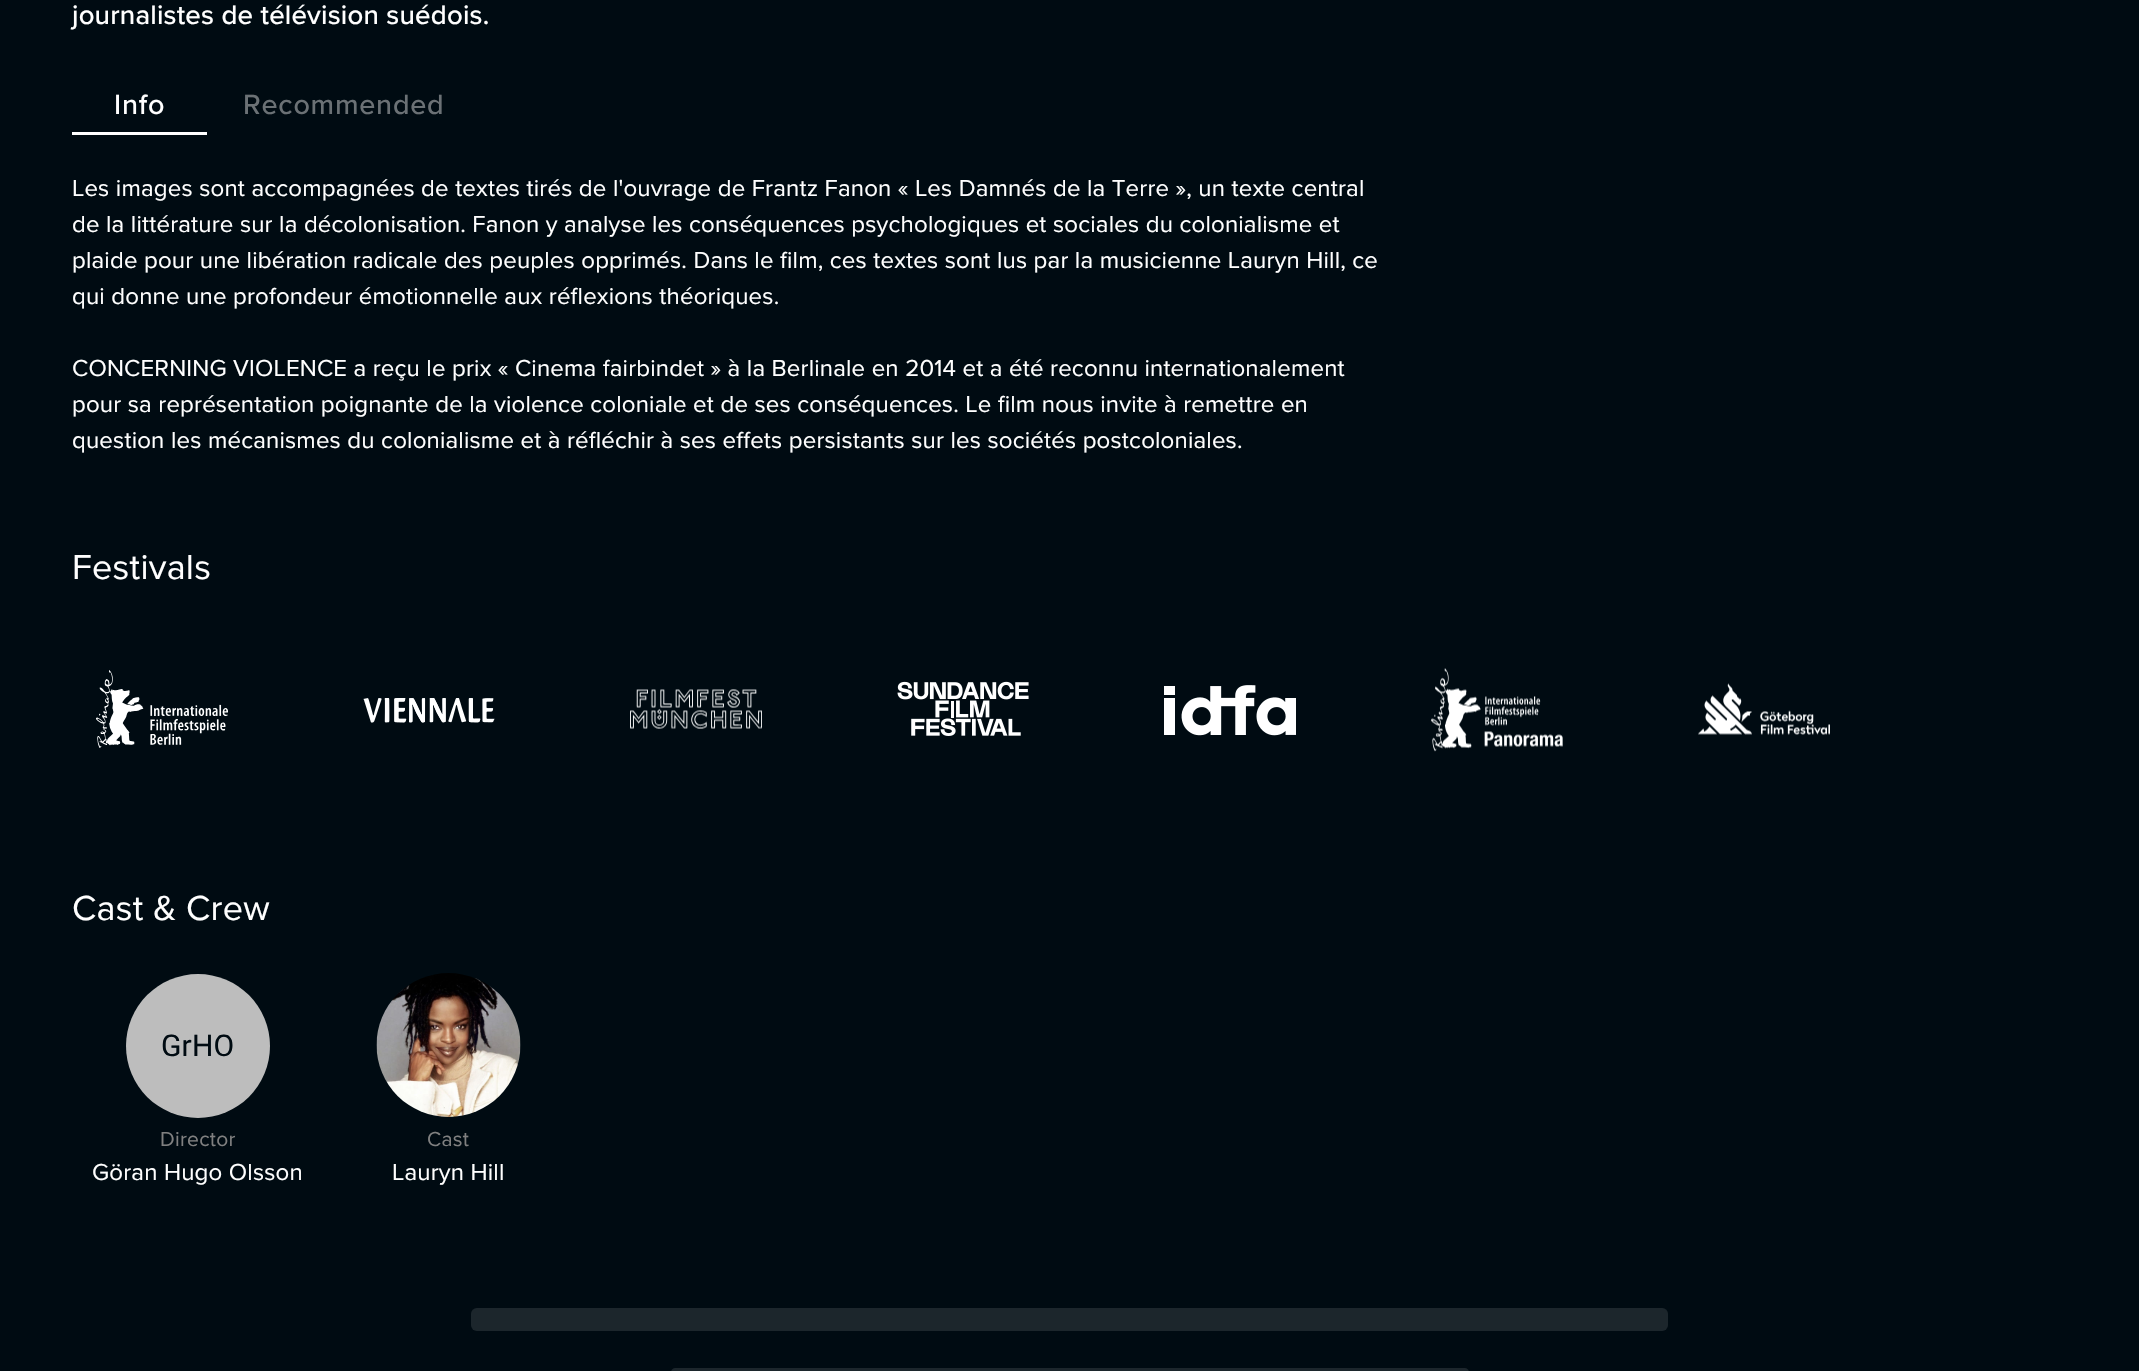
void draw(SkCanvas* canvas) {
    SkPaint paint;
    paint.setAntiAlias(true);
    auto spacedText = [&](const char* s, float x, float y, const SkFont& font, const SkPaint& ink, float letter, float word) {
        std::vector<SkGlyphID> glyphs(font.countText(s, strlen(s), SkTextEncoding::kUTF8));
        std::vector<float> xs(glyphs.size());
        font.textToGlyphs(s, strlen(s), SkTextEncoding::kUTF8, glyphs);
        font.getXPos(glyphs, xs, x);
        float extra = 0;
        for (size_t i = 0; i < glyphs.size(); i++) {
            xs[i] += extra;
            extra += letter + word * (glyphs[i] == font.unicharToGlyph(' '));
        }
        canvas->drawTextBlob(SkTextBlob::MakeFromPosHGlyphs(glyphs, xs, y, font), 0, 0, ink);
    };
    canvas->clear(0xFF000B12);
    SkFont font1(fontMgr->matchFamilyStyle("Proxima Nova", SkFontStyle(500, SkFontStyle::kNormal_Width, SkFontStyle::kUpright_Slant)), 27.6f);
    font1.setSubpixel(true);
    paint.setColor(0xFFFFFFFF);
    spacedText("journalistes de télévision suédois.", 72, 24, font1, paint, 0.2f, 0);
    SkFont font2(fontMgr->matchFamilyStyle("Proxima Nova", SkFontStyle(500, SkFontStyle::kNormal_Width, SkFontStyle::kUpright_Slant)), 28.75f);
    font2.setSubpixel(true);
    spacedText("Info", 114, 114, font2, paint, 0.75f, 0);
    paint.setColor(0xFF6B7175);
    spacedText("Recommended", 243, 114, font2, paint, 0.75f, 0);
    paint.setColor(0xFFFFFFFF);
    canvas->drawRect(SkRect::MakeXYWH(72, 132, 135, 3), paint);
    SkFont font3(fontMgr->matchFamilyStyle("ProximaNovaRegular", SkFontStyle::Normal()), 24);
    font3.setSubpixel(true);
    spacedText("Les images sont accompagnées de textes tirés de l'ouvrage de Frantz Fanon « Les Damnés de la Terre », un texte central", 72, 196, font3, paint, 0.18f, 0);
    spacedText("de la littérature sur la décolonisation. Fanon y analyse les conséquences psychologiques et sociales du colonialisme et", 72, 232, font3, paint, 0.18f, 0);
    spacedText("plaide pour une libération radicale des peuples opprimés. Dans le film, ces textes sont lus par la musicienne Lauryn Hill, ce", 72, 268, font3, paint, 0.18f, 0);
    spacedText("qui donne une profondeur émotionnelle aux réflexions théoriques.", 72, 304, font3, paint, 0.18f, 0);
    spacedText("CONCERNING VIOLENCE a reçu le prix « Cinema fairbindet » à la Berlinale en 2014 et a été reconnu internationalement", 72, 376, font3, paint, 0.18f, 0);
    spacedText("pour sa représentation poignante de la violence coloniale et de ses conséquences. Le film nous invite à remettre en", 72, 412, font3, paint, 0.18f, 0);
    spacedText("question les mécanismes du colonialisme et à réfléchir à ses effets persistants sur les sociétés postcoloniales.", 72, 448, font3, paint, 0.18f, 0);
    SkFont font4(fontMgr->matchFamilyStyle("ProximaNovaRegular", SkFontStyle::Normal()), 36);
    font4.setSubpixel(true);
    spacedText("Festivals", 72, 579, font4, paint, 0.25f, 0);
    canvas->drawImageRect(SkImages::DeferredFromEncodedData(SkData::MakeFromFileName("img1.png")), SkRect::MakeXYWH(96, 670, 132, 78), SkSamplingOptions());
    canvas->drawImageRect(SkImages::DeferredFromEncodedData(SkData::MakeFromFileName("img2.png")), SkRect::MakeXYWH(363, 698, 132, 25), SkSamplingOptions());
    canvas->drawImageRect(SkImages::DeferredFromEncodedData(SkData::MakeFromFileName("img3.png")), SkRect::MakeXYWH(630, 689, 132, 40), SkSamplingOptions());
    canvas->drawImageRect(SkImages::DeferredFromEncodedData(SkData::MakeFromFileName("img4.png")), SkRect::MakeXYWH(897, 681, 132, 55), SkSamplingOptions());
    canvas->drawImageRect(SkImages::DeferredFromEncodedData(SkData::MakeFromFileName("img5.png")), SkRect::MakeXYWH(1164, 685, 132, 51), SkSamplingOptions());
    canvas->drawImageRect(SkImages::DeferredFromEncodedData(SkData::MakeFromFileName("img6.png")), SkRect::MakeXYWH(1431, 668, 132, 84), SkSamplingOptions());
    canvas->drawImageRect(SkImages::DeferredFromEncodedData(SkData::MakeFromFileName("img7.png")), SkRect::MakeXYWH(1698, 683, 132, 52), SkSamplingOptions());
    spacedText("Cast & Crew", 72, 920, font4, paint, 0.25f, 0);
    paint.setColor(0xFFBDBDBD);
    canvas->drawCircle(198, 1046, 72, paint);
    SkFont font5(fontMgr->matchFamilyStyle("Roboto", SkFontStyle::Normal()), 30);
    font5.setSubpixel(true);
    paint.setColor(0xFF000B12);
    spacedText("GrHO", 161, 1056, font5, paint, 0.18f, 0);
    SkFont font6(fontMgr->matchFamilyStyle("ProximaNovaRegular", SkFontStyle::Normal()), 21);
    font6.setSubpixel(true);
    paint.setColor(0xFF808080);
    spacedText("Director", 160, 1146, font6, paint, 0.25f, 0);
    paint.setColor(0xFFFFFFFF);
    spacedText("Göran Hugo Olsson", 92, 1180, font3, paint, 0.18f, 0);
    canvas->drawImageRect(SkImages::DeferredFromEncodedData(SkData::MakeFromFileName("img8.png")), SkRect::MakeXYWH(376, 973, 145, 144), SkSamplingOptions());
    paint.setColor(0xFF808080);
    spacedText("Cast", 427, 1146, font6, paint, 0.25f, 0);
    paint.setColor(0xFFFFFFFF);
    spacedText("Lauryn Hill", 392, 1180, font3, paint, 0.18f, 0);
    paint.setColor(0xFF1C262C);
    canvas->drawRoundRect(SkRect::MakeXYWH(471, 1308, 1197, 23), 6, 6, paint);
    canvas->drawRoundRect(SkRect::MakeXYWH(671, 1368, 798, 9), 6, 6, paint);
}
